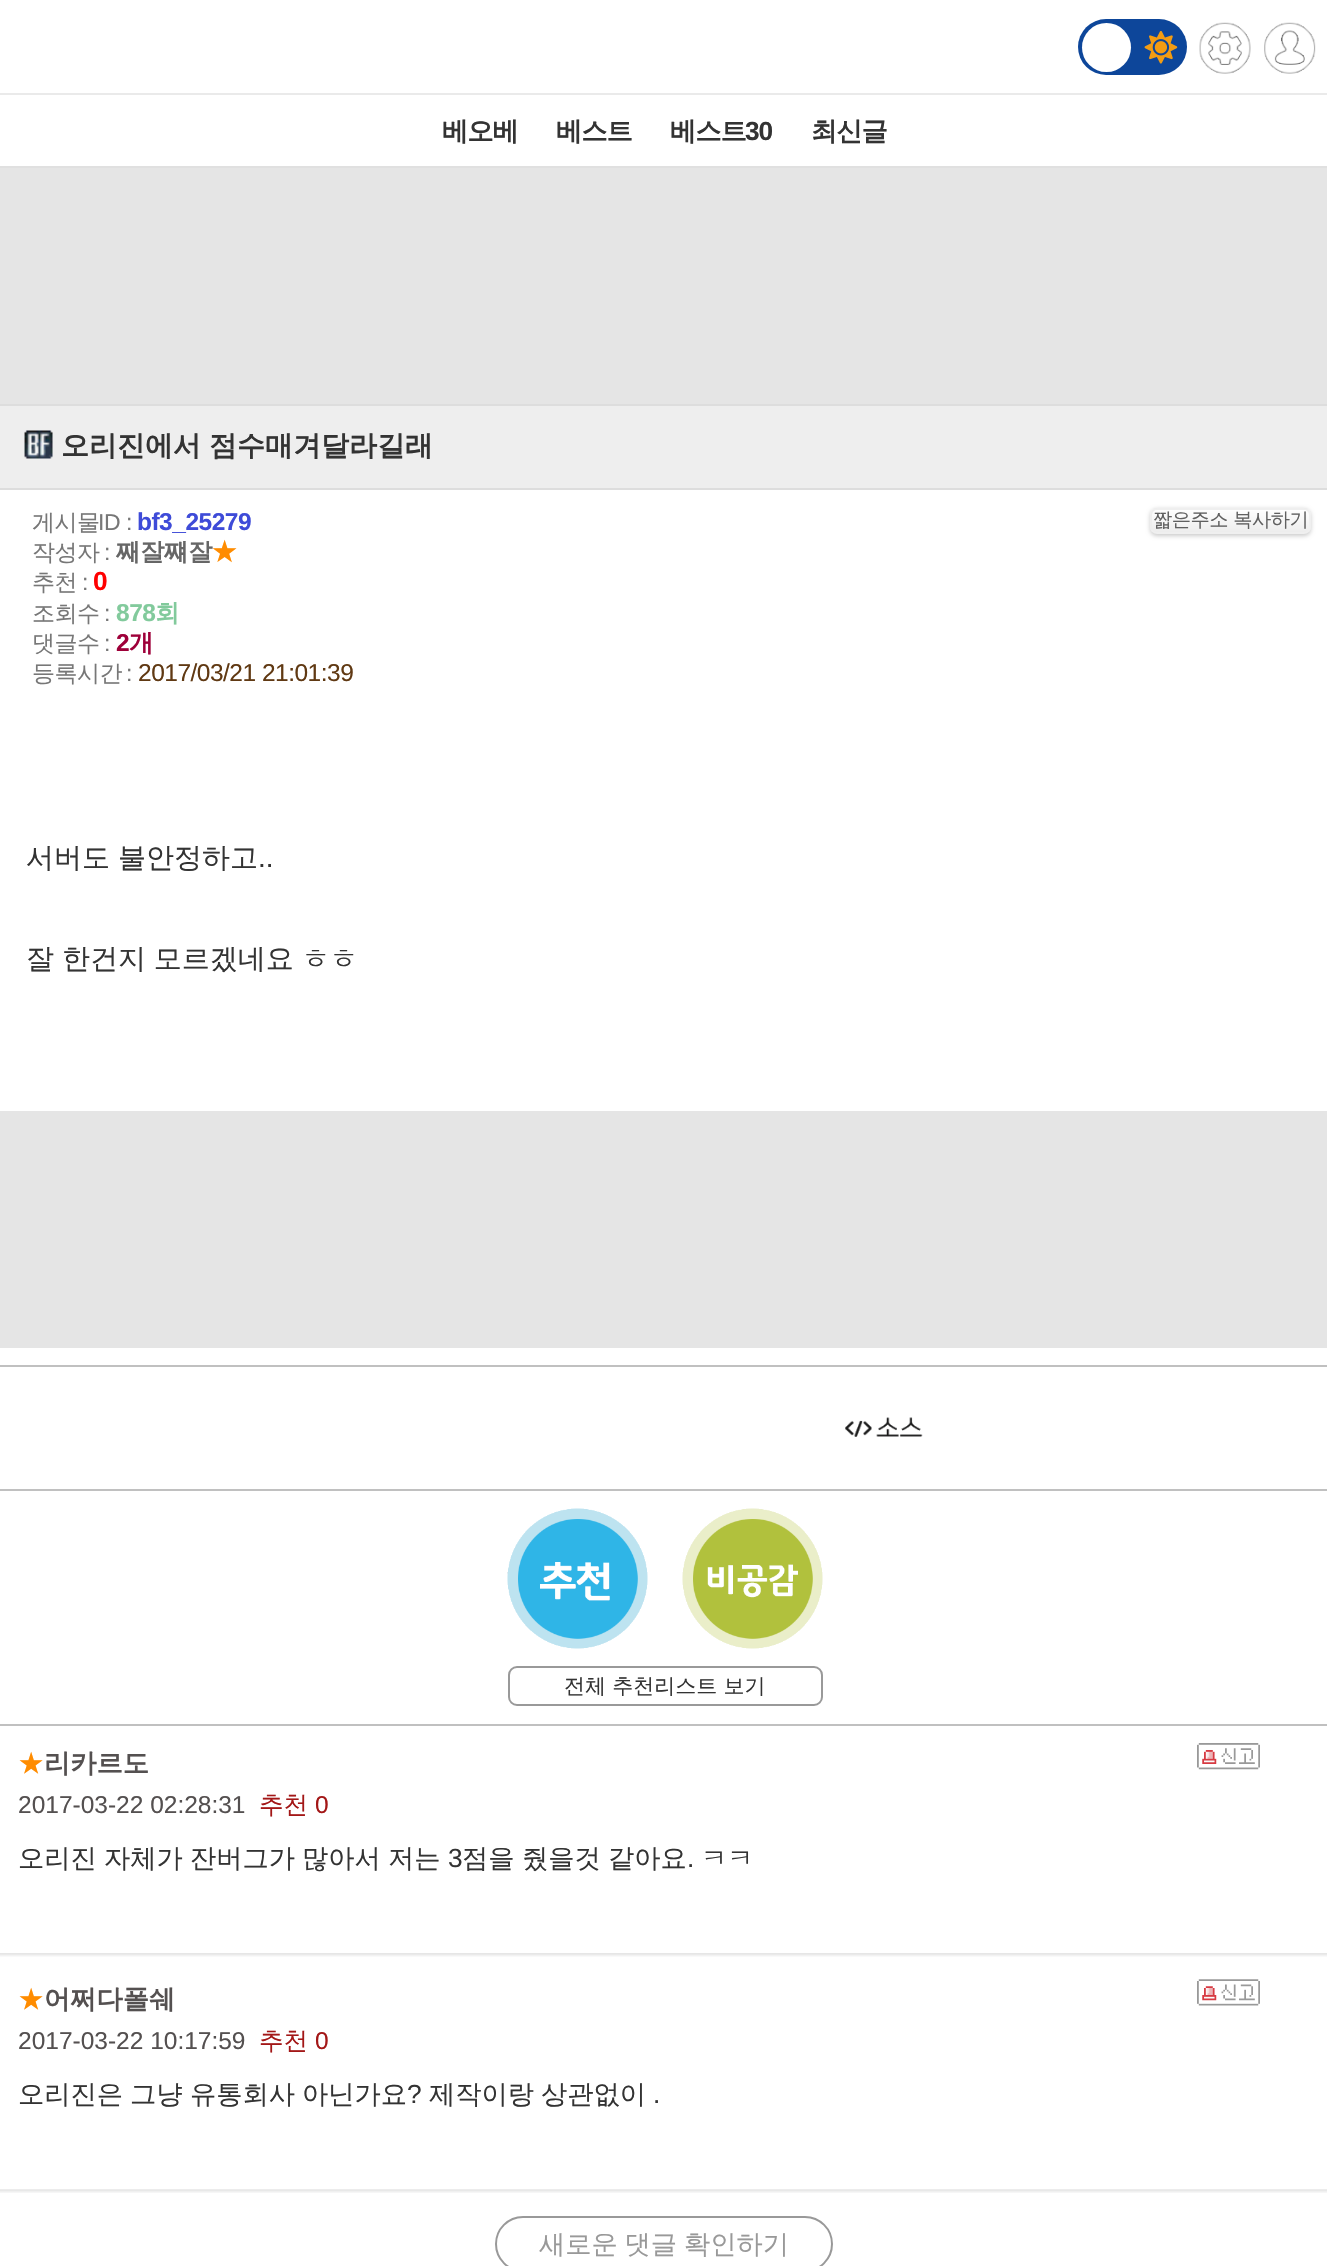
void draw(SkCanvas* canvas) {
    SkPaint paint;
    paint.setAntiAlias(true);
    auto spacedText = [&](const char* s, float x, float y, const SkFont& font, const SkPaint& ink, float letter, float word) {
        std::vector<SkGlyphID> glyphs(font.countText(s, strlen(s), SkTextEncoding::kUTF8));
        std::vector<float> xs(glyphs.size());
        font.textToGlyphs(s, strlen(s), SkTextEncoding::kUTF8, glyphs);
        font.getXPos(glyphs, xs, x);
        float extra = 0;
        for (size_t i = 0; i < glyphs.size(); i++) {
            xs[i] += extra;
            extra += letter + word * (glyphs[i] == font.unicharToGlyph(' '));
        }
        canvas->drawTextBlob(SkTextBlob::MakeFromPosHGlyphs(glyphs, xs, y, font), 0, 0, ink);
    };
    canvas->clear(0xFFFFFFFF);
    paint.setColor(0xFFEAEAEA);
    canvas->drawRect(SkRect::MakeXYWH(0, 93, 1327, 2), paint);
    paint.setColor(0xFF0D469A);
    canvas->drawRoundRect(SkRect::MakeXYWH(1078, 19, 109, 56), 28, 28, paint);
    paint.setColor(0xFFFFFFFF);
    canvas->drawCircle(1106.5f, 47.5f, 24.5f, paint);
    canvas->drawImageRect(SkImages::DeferredFromEncodedData(SkData::MakeFromFileName("img1.png")), SkRect::MakeXYWH(1144, 31, 34, 33), SkSamplingOptions());
    canvas->drawImageRect(SkImages::DeferredFromEncodedData(SkData::MakeFromFileName("img2.png")), SkRect::MakeXYWH(1199, 22, 52, 52), SkSamplingOptions());
    canvas->drawImageRect(SkImages::DeferredFromEncodedData(SkData::MakeFromFileName("img3.png")), SkRect::MakeXYWH(1264, 22, 52, 52), SkSamplingOptions());
    paint.setColor(0xFFE0E0E0);
    canvas->drawRect(SkRect::MakeXYWH(0, 166, 1327, 2), paint);
    SkFont font1(fontMgr->matchFamilyStyle("WenQuanYi Zen Hei", SkFontStyle::Bold()), 26.25f);
    font1.setSubpixel(true);
    paint.setColor(0xFF333333);
    spacedText("베오베", 442, 140, font1, paint, -1, 0);
    spacedText("베스트", 556, 140, font1, paint, -1, 0);
    spacedText("베스트", 670, 140, font1, paint, -1, 0);
    SkFont font2(fontMgr->matchFamilyStyle("Liberation Sans", SkFontStyle::Bold()), 26.25f);
    font2.setSubpixel(true);
    spacedText("30", 745, 140, font2, paint, -1, 0);
    spacedText("최신글", 811, 140, font1, paint, -1, 0);
    paint.setColor(0xFFE5E5E5);
    canvas->drawRect(SkRect::MakeXYWH(0, 168, 1327, 236), paint);
    paint.setColor(0xFFEEEEEE);
    canvas->drawRect(SkRect::MakeXYWH(0, 406, 1327, 82), paint);
    paint.setColor(0xFFDDDDDD);
    canvas->drawRect(SkRect::MakeXYWH(0, 404, 1327, 2), paint);
    canvas->drawRect(SkRect::MakeXYWH(0, 488, 1327, 2), paint);
    canvas->drawImageRect(SkImages::DeferredFromEncodedData(SkData::MakeFromFileName("img4.png")), SkRect::MakeXYWH(24, 430, 29, 29), SkSamplingOptions());
    SkFont font3(fontMgr->matchFamilyStyle("WenQuanYi Zen Hei", SkFontStyle::Bold()), 28);
    font3.setSubpixel(true);
    paint.setColor(0xFF333333);
    spacedText("오리진에서 점수매겨달라길래", 61, 455, font3, paint, 0, -0.5f);
    SkFont font4(fontMgr->matchFamilyStyle("WenQuanYi Zen Hei", SkFontStyle(500, SkFontStyle::kNormal_Width, SkFontStyle::kUpright_Slant)), 23);
    font4.setSubpixel(true);
    paint.setColor(0xFF777777);
    spacedText("게시물", 32, 530, font4, paint, -0.5f, 0);
    SkFont font5(fontMgr->matchFamilyStyle("Liberation Sans", SkFontStyle::Normal()), 23);
    font5.setSubpixel(true);
    spacedText("ID :", 98, 530, font5, paint, -0.5f, 0);
    SkFont font6(fontMgr->matchFamilyStyle("Liberation Sans", SkFontStyle::Bold()), 24.5f);
    font6.setSubpixel(true);
    paint.setColor(0xFF3E4BD8);
    spacedText("bf3_25279", 137, 530, font6, paint, -0.5f, 0);
    paint.setColor(0x33000000);
    paint.setMaskFilter(SkMaskFilter::MakeBlur(kNormal_SkBlurStyle, 2));
    canvas->drawRoundRect(SkRect::MakeXYWH(1150, 509, 161, 27), 7, 7, paint);
    paint.setMaskFilter(nullptr);
    canvas->save();
    canvas->clipPath(SkPathBuilder().moveTo(1157, 508).lineTo(1304, 508).cubicTo(1308, 508, 1311, 511, 1311, 515).lineTo(1311, 527).cubicTo(1311, 531, 1308, 534, 1304, 534).lineTo(1157, 534).cubicTo(1153, 534, 1150, 531, 1150, 527).lineTo(1150, 515).cubicTo(1150, 511, 1153, 508, 1157, 508).close().detach(), true);
    {
        const SkColor colors[] = {0xFFFFFFFF, 0xFFEDEDED};
        const float stops[] = {0, 1};
        const SkPoint ends[] = {{1152, 509}, {1152, 532}};
        paint.setShader(SkGradientShader::MakeLinear(ends, colors, stops, 2, SkTileMode::kClamp));
        paint.setAlpha(255);
    }
    canvas->drawRect(SkRect::MakeXYWH(1150, 509, 161, 23), paint);
    canvas->restore();
    paint.setStyle(SkPaint::kStroke_Style);
    paint.setStrokeWidth(2);
    paint.setShader(nullptr);
    paint.setColor(0xFFEFEFEF);
    canvas->drawRoundRect(SkRect::MakeXYWH(1151, 509, 159, 24), 6, 6, paint);
    SkFont font7(fontMgr->matchFamilyStyle("WenQuanYi Zen Hei", SkFontStyle(500, SkFontStyle::kNormal_Width, SkFontStyle::kUpright_Slant)), 19.25f);
    font7.setSubpixel(true);
    paint.setStyle(SkPaint::kFill_Style);
    paint.setColor(0xFF606060);
    spacedText("짧은주소 복사하기", 1153, 526, font7, paint, -0.5f, 0);
    paint.setColor(0xFF777777);
    spacedText("작성자", 32, 560, font4, paint, -0.5f, 0);
    spacedText(":", 104, 560, font5, paint, -0.5f, 0);
    SkFont font8(fontMgr->matchFamilyStyle("WenQuanYi Zen Hei", SkFontStyle::Bold()), 24.5f);
    font8.setSubpixel(true);
    paint.setColor(0xFF666666);
    spacedText("째잘쨰잘", 116, 560, font8, paint, -0.5f, 0);
    paint.setColor(0xFFFF8C00);
    spacedText("★", 212, 560, font8, paint, -0.5f, 0);
    paint.setColor(0xFF777777);
    spacedText("추천", 32, 590, font4, paint, -0.5f, 0);
    spacedText(":", 82, 590, font5, paint, -0.5f, 0);
    paint.setColor(0xFFFF0000);
    spacedText("0", 93, 590, font2, paint, -0.5f, 0);
    paint.setColor(0xFF777777);
    spacedText("조회수", 32, 621, font4, paint, -0.5f, 0);
    spacedText(":", 104, 621, font5, paint, -0.5f, 0);
    paint.setColor(0xFF82CA9C);
    spacedText("878", 116, 621, font6, paint, -0.5f, 0);
    spacedText("회", 155, 621, font8, paint, -0.5f, 0);
    paint.setColor(0xFF777777);
    spacedText("댓글수", 32, 651, font4, paint, -0.5f, 0);
    spacedText(":", 104, 651, font5, paint, -0.5f, 0);
    paint.setColor(0xFF9E0039);
    spacedText("2", 116, 651, font6, paint, -0.5f, 0);
    spacedText("개", 129, 651, font8, paint, -0.5f, 0);
    paint.setColor(0xFF777777);
    spacedText("등록시간", 32, 681, font4, paint, -0.5f, 0);
    spacedText(":", 126, 681, font5, paint, -0.5f, 0);
    SkFont font9(fontMgr->matchFamilyStyle("Liberation Sans", SkFontStyle::Normal()), 24.5f);
    font9.setSubpixel(true);
    paint.setColor(0xFF603913);
    spacedText("2017/03/21 21:01:39", 138, 681, font9, paint, -0.5f, 0);
    SkFont font10(fontMgr->matchFamilyStyle("WenQuanYi Zen Hei", SkFontStyle(500, SkFontStyle::kNormal_Width, SkFontStyle::kUpright_Slant)), 28);
    font10.setSubpixel(true);
    paint.setColor(0xFF333333);
    spacedText("서버도 불안정하고", 26, 867, font10, paint, 0, -0.5f);
    SkFont font11(fontMgr->matchFamilyStyle("Liberation Sans", SkFontStyle::Normal()), 28);
    font11.setSubpixel(true);
    canvas->drawString("..", 258, 867, font11, paint);
    spacedText("잘 한건지 모르겠네요 ㅎㅎ", 26, 968, font10, paint, 0, -0.5f);
    paint.setColor(0xFFE5E5E5);
    canvas->drawRect(SkRect::MakeXYWH(0, 1111, 1327, 237), paint);
    paint.setColor(0xFFC0C0C0);
    canvas->drawRect(SkRect::MakeXYWH(0, 1365, 1327, 2), paint);
    canvas->drawImageRect(SkImages::DeferredFromEncodedData(SkData::MakeFromFileName("img5.png")), SkRect::MakeXYWH(845, 1417, 78, 20), SkSamplingOptions());
    canvas->drawRect(SkRect::MakeXYWH(0, 1489, 1327, 2), paint);
    canvas->drawRect(SkRect::MakeXYWH(0, 1724, 1327, 2), paint);
    canvas->drawImageRect(SkImages::DeferredFromEncodedData(SkData::MakeFromFileName("img6.png")), SkRect::MakeXYWH(507, 1508, 141, 141), SkSamplingOptions());
    canvas->drawImageRect(SkImages::DeferredFromEncodedData(SkData::MakeFromFileName("img7.png")), SkRect::MakeXYWH(682, 1508, 141, 141), SkSamplingOptions());
    paint.setStyle(SkPaint::kStroke_Style);
    paint.setColor(0xFF999999);
    canvas->drawRoundRect(SkRect::MakeXYWH(509, 1667, 313, 38), 8, 8, paint);
    SkFont font12(fontMgr->matchFamilyStyle("WenQuanYi Zen Hei", SkFontStyle(500, SkFontStyle::kNormal_Width, SkFontStyle::kUpright_Slant)), 21);
    font12.setSubpixel(true);
    paint.setStyle(SkPaint::kFill_Style);
    paint.setColor(0xFF333333);
    canvas->drawString("전체 추천리스트 보기", 564, 1693, font12, paint);
    SkFont font13(fontMgr->matchFamilyStyle("WenQuanYi Zen Hei", SkFontStyle(500, SkFontStyle::kNormal_Width, SkFontStyle::kUpright_Slant)), 26.25f);
    font13.setSubpixel(true);
    paint.setColor(0xFFFF8C00);
    canvas->drawString("★", 18, 1772, font13, paint);
    paint.setColor(0xFF545050);
    canvas->drawString("리카르도", 44, 1772, font1, paint);
    canvas->drawImageRect(SkImages::DeferredFromEncodedData(SkData::MakeFromFileName("img8.png")), SkRect::MakeXYWH(1197, 1743, 63, 27), SkSamplingOptions());
    canvas->drawString("2017-03-22 02:28:31", 18, 1813, font9, paint);
    SkFont font14(fontMgr->matchFamilyStyle("WenQuanYi Zen Hei", SkFontStyle(500, SkFontStyle::kNormal_Width, SkFontStyle::kUpright_Slant)), 24.5f);
    font14.setSubpixel(true);
    paint.setColor(0xFFA31717);
    canvas->drawString("추천", 259, 1813, font14, paint);
    canvas->drawString("0", 315, 1813, font9, paint);
    paint.setColor(0xFF333333);
    canvas->drawString("오리진", 18, 1867, font13, paint);
    canvas->drawString("자체가", 104, 1867, font13, paint);
    canvas->drawString("잔버그가", 190, 1867, font13, paint);
    canvas->drawString("많아서", 302, 1867, font13, paint);
    canvas->drawString("저는", 388, 1867, font13, paint);
    SkFont font15(fontMgr->matchFamilyStyle("Liberation Sans", SkFontStyle::Normal()), 26.25f);
    font15.setSubpixel(true);
    canvas->drawString("3", 448, 1867, font15, paint);
    canvas->drawString("점을", 462, 1867, font13, paint);
    canvas->drawString("줬을것", 522, 1867, font13, paint);
    canvas->drawString("같아요", 608, 1867, font13, paint);
    canvas->drawString("ㅋㅋ", 701, 1867, font13, paint);
    canvas->drawString(".", 687, 1867, font15, paint);
    canvas->drawImageRect(SkImages::DeferredFromEncodedData(SkData::MakeFromFileName("img9.png")), SkRect::MakeXYWH(0, 1953, 1327, 4), SkSamplingOptions());
    paint.setColor(0xFFFF8C00);
    canvas->drawString("★", 18, 2008, font13, paint);
    paint.setColor(0xFF545050);
    canvas->drawString("어쩌다폴쉐", 44, 2008, font1, paint);
    canvas->drawImageRect(SkImages::DeferredFromEncodedData(SkData::MakeFromFileName("img10.png")), SkRect::MakeXYWH(1197, 1979, 63, 27), SkSamplingOptions());
    canvas->drawString("2017-03-22 10:17:59", 18, 2049, font9, paint);
    paint.setColor(0xFFA31717);
    canvas->drawString("추천", 259, 2049, font14, paint);
    canvas->drawString("0", 315, 2049, font9, paint);
    paint.setColor(0xFF333333);
    canvas->drawString("오리진은", 18, 2103, font13, paint);
    canvas->drawString("그냥", 130, 2103, font13, paint);
    canvas->drawString("유통회사", 190, 2103, font13, paint);
    canvas->drawString("아닌가요", 302, 2103, font13, paint);
    canvas->drawString("?", 407, 2103, font15, paint);
    canvas->drawString("제작이랑", 429, 2103, font13, paint);
    canvas->drawString("상관없이", 541, 2103, font13, paint);
    canvas->drawString(".", 653, 2103, font15, paint);
    canvas->drawImageRect(SkImages::DeferredFromEncodedData(SkData::MakeFromFileName("img11.png")), SkRect::MakeXYWH(0, 2189, 1327, 4), SkSamplingOptions());
    paint.setStyle(SkPaint::kStroke_Style);
    paint.setColor(0xFF999999);
    canvas->drawRoundRect(SkRect::MakeXYWH(496, 2217, 336, 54), 27, 27, paint);
    paint.setStyle(SkPaint::kFill_Style);
    spacedText("새로운 댓글 확인하기", 539, 2253, font13, paint, 0, -1);
}
